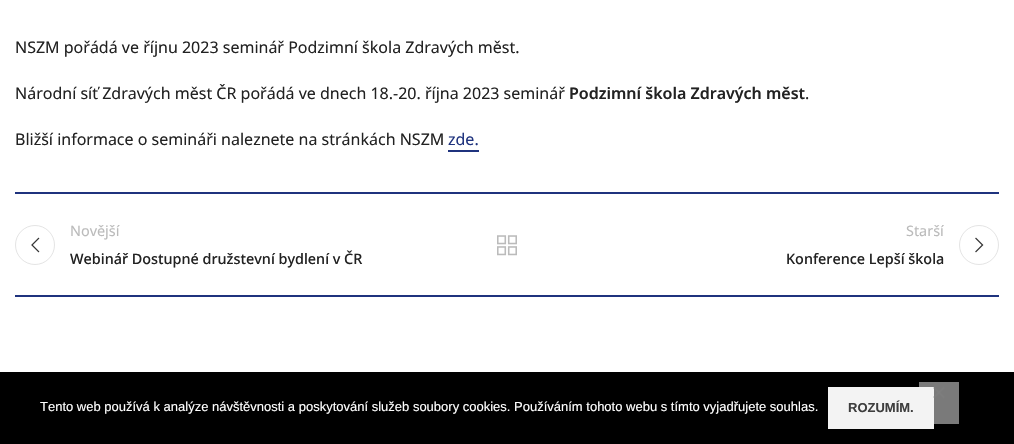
void draw(SkCanvas* canvas) {
    SkPaint paint;
    paint.setAntiAlias(true);
    canvas->clear(0xFFFFFFFF);
    SkFont font1(fontMgr->matchFamilyStyle("Noto Sans", SkFontStyle::Normal()), 16);
    font1.setSubpixel(true);
    paint.setColor(0xFF222222);
    canvas->drawString("NSZM pořádá ve říjnu 2023 seminář Podzimní škola Zdravých měst.", 15, 53, font1, paint);
    canvas->drawString("Národní síť Zdravých měst ČR pořádá ve dnech 18.-20. října 2023 seminář", 15, 99, font1, paint);
    SkFont font2(fontMgr->matchFamilyStyle("Noto Sans", SkFontStyle(600, SkFontStyle::kNormal_Width, SkFontStyle::kUpright_Slant)), 16);
    font2.setSubpixel(true);
    canvas->drawString("Podzimní škola Zdravých měst", 569, 99, font2, paint);
    canvas->drawString(".", 805, 99, font1, paint);
    canvas->drawString("Bližší informace o semináři naleznete na stránkách NSZM", 15, 145, font1, paint);
    paint.setColor(0xFF1F337E);
    canvas->drawString("zde.", 448, 145, font1, paint);
    canvas->drawRect(SkRect::MakeXYWH(448, 150, 31, 2), paint);
    canvas->drawRect(SkRect::MakeXYWH(15, 192, 984, 2), paint);
    canvas->drawRect(SkRect::MakeXYWH(15, 295, 984, 2), paint);
    paint.setStyle(SkPaint::kStroke_Style);
    paint.setStrokeWidth(1);
    paint.setColor(0xFFE4E4E4);
    canvas->drawCircle(35, 245, 19.5f, paint);
    canvas->drawImageRect(SkImages::DeferredFromEncodedData(SkData::MakeFromFileName("img1.png")), SkRect::MakeXYWH(31, 237, 9, 16), SkSamplingOptions());
    SkFont font3(fontMgr->matchFamilyStyle("Noto Sans", SkFontStyle::Normal()), 14.4f);
    font3.setSubpixel(true);
    paint.setStyle(SkPaint::kFill_Style);
    paint.setColor(0xFFBBBBBB);
    canvas->drawString("Novější", 70, 236, font3, paint);
    SkFont font4(fontMgr->matchFamilyStyle("Noto Sans", SkFontStyle(500, SkFontStyle::kNormal_Width, SkFontStyle::kUpright_Slant)), 14.4f);
    font4.setSubpixel(true);
    paint.setColor(0xFF222222);
    canvas->drawString("Webinář Dostupné družstevní bydlení v ČR", 70, 264, font4, paint);
    canvas->drawImageRect(SkImages::DeferredFromEncodedData(SkData::MakeFromFileName("img2.png")), SkRect::MakeXYWH(497, 235, 20, 21), SkSamplingOptions());
    paint.setColor(0xFFBBBBBB);
    canvas->drawString("Starší", 906, 236, font3, paint);
    paint.setStyle(SkPaint::kStroke_Style);
    paint.setColor(0xFFE4E4E4);
    canvas->drawCircle(979, 245, 19.5f, paint);
    canvas->drawImageRect(SkImages::DeferredFromEncodedData(SkData::MakeFromFileName("img3.png")), SkRect::MakeXYWH(975, 237, 9, 16), SkSamplingOptions());
    paint.setStyle(SkPaint::kFill_Style);
    paint.setColor(0xFF222222);
    canvas->drawString("Konference Lepší škola", 786, 264, font4, paint);
    paint.setColor(0xFF000000);
    canvas->drawRect(SkRect::MakeXYWH(0, 372, 1014, 72), paint);
    SkFont font5(fontMgr->matchFamilyStyle("Liberation Sans", SkFontStyle::Normal()), 13);
    font5.setSubpixel(true);
    paint.setColor(0xFFFFFFFF);
    canvas->drawString("Tento web používá k analýze návštěvnosti a poskytování služeb soubory cookies. Používáním tohoto webu s tímto vyjadřujete souhlas.", 40, 411, font5, paint);
    paint.setColor(0xFFF3F3F3);
    canvas->drawRect(SkRect::MakeXYWH(828, 387, 106, 42), paint);
    SkFont font6(fontMgr->matchFamilyStyle("Liberation Sans", SkFontStyle::Bold()), 13);
    font6.setSubpixel(true);
    paint.setColor(0xFF3E3E3E);
    canvas->drawString("ROZUMÍM.", 848, 412, font6, paint);
    paint.setColor(0x80F3F3F3);
    canvas->drawRect(SkRect::MakeXYWH(919, 382, 40, 42), paint);
    paint.setColor(0x80808080);
    canvas->drawPath(SkPathBuilder().moveTo(943.5f, 386.5f).lineTo(945, 388).lineTo(934.5f, 398.5f).lineTo(933, 397).close().detach(), paint);
    canvas->drawPath(SkPathBuilder().moveTo(933, 388).lineTo(934.5f, 386.5f).lineTo(945, 397).lineTo(943.5f, 398.5f).close().detach(), paint);
}
